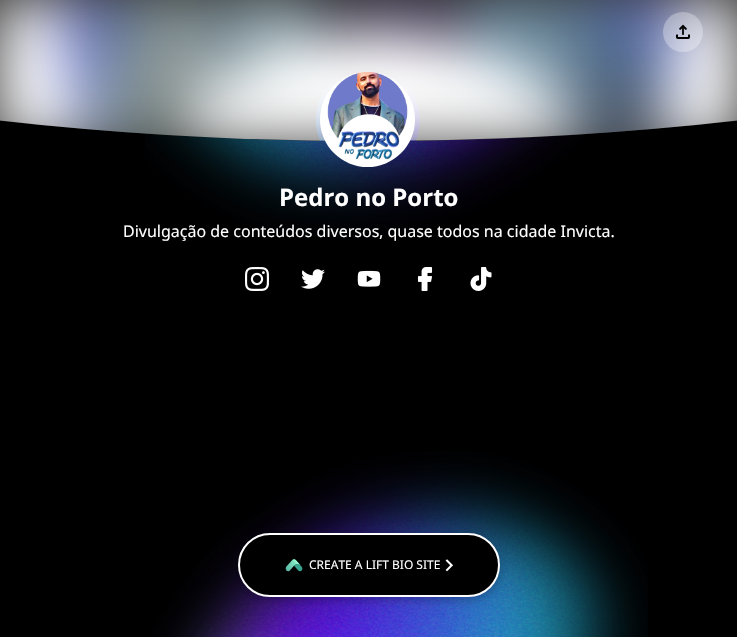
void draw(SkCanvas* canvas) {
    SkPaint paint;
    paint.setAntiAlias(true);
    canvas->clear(0xFF000000);
    canvas->drawImageRect(SkImages::DeferredFromEncodedData(SkData::MakeFromFileName("img2.png")), SkRect::MakeXYWH(145, 78, 503, 559), SkSamplingOptions());
    paint.setColor(0xFF333333);
    canvas->drawPath(SkPathBuilder().moveTo(320, 141).cubicTo(3, 136, -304, 87, -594, 0).lineTo(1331, 0).cubicTo(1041, 87, 733, 136, 416, 141).cubicTo(424, 119, 419, 94, 401, 79).cubicTo(382, 64, 354, 64, 335, 79).cubicTo(317, 94, 311, 119, 320, 141).close().detach(), paint);
    canvas->drawImageRect(SkImages::DeferredFromEncodedData(SkData::MakeFromFileName("img1.png")), SkRect::MakeXYWH(0, 0, 737, 141), SkSamplingOptions());
    paint.setColor(0x4DFFFFFF);
    canvas->drawCircle(683, 32, 20, paint);
    canvas->drawImageRect(SkImages::DeferredFromEncodedData(SkData::MakeFromFileName("img3.png")), SkRect::MakeXYWH(676, 24, 14, 15), SkSamplingOptions());
    canvas->drawImageRect(SkImages::DeferredFromEncodedData(SkData::MakeFromFileName("img4.png")), SkRect::MakeXYWH(320, 72, 95, 95), SkSamplingOptions());
    SkFont font1(fontMgr->matchFamilyStyle("Noto Sans", SkFontStyle::Bold()), 24);
    font1.setSubpixel(true);
    paint.setColor(0xFFFFFFFF);
    canvas->drawString("Pedro no Porto", 279, 206, font1, paint);
    SkFont font2(fontMgr->matchFamilyStyle("Noto Sans", SkFontStyle::Normal()), 16);
    font2.setSubpixel(true);
    canvas->drawString("Divulgação de conteúdos diversos, quase todos na cidade Invicta.", 123, 237, font2, paint);
    canvas->drawImageRect(SkImages::DeferredFromEncodedData(SkData::MakeFromFileName("img5.png")), SkRect::MakeXYWH(245, 267, 24, 24), SkSamplingOptions());
    canvas->drawImageRect(SkImages::DeferredFromEncodedData(SkData::MakeFromFileName("img6.png")), SkRect::MakeXYWH(301, 269, 24, 20), SkSamplingOptions());
    canvas->drawImageRect(SkImages::DeferredFromEncodedData(SkData::MakeFromFileName("img7.png")), SkRect::MakeXYWH(357, 270, 24, 17), SkSamplingOptions());
    canvas->drawImageRect(SkImages::DeferredFromEncodedData(SkData::MakeFromFileName("img8.png")), SkRect::MakeXYWH(417, 267, 16, 24), SkSamplingOptions());
    canvas->drawImageRect(SkImages::DeferredFromEncodedData(SkData::MakeFromFileName("img9.png")), SkRect::MakeXYWH(470, 267, 22, 24), SkSamplingOptions());
    paint.setColor(0x33000000);
    paint.setMaskFilter(SkMaskFilter::MakeBlur(kNormal_SkBlurStyle, 4));
    canvas->drawRoundRect(SkRect::MakeXYWH(238, 537, 262, 64), 32, 32, paint);
    paint.setMaskFilter(nullptr);
    paint.setColor(0xFF000000);
    canvas->drawRoundRect(SkRect::MakeXYWH(239, 534, 260, 62), 31, 31, paint);
    paint.setStyle(SkPaint::kStroke_Style);
    paint.setStrokeWidth(2);
    paint.setColor(0xFFFFFFFF);
    canvas->drawRoundRect(SkRect::MakeXYWH(239, 534, 260, 62), 31, 31, paint);
    canvas->drawImageRect(SkImages::DeferredFromEncodedData(SkData::MakeFromFileName("img10.png")), SkRect::MakeXYWH(285, 559, 18, 13), SkSamplingOptions());
    SkFont font3(fontMgr->matchFamilyStyle("Noto Sans", SkFontStyle::Normal()), 12);
    font3.setSubpixel(true);
    paint.setStyle(SkPaint::kFill_Style);
    canvas->drawString("CREATE A LIFT BIO SITE", 309, 569, font3, paint);
    canvas->drawImageRect(SkImages::DeferredFromEncodedData(SkData::MakeFromFileName("img11.png")), SkRect::MakeXYWH(445, 559, 8, 13), SkSamplingOptions());
}
